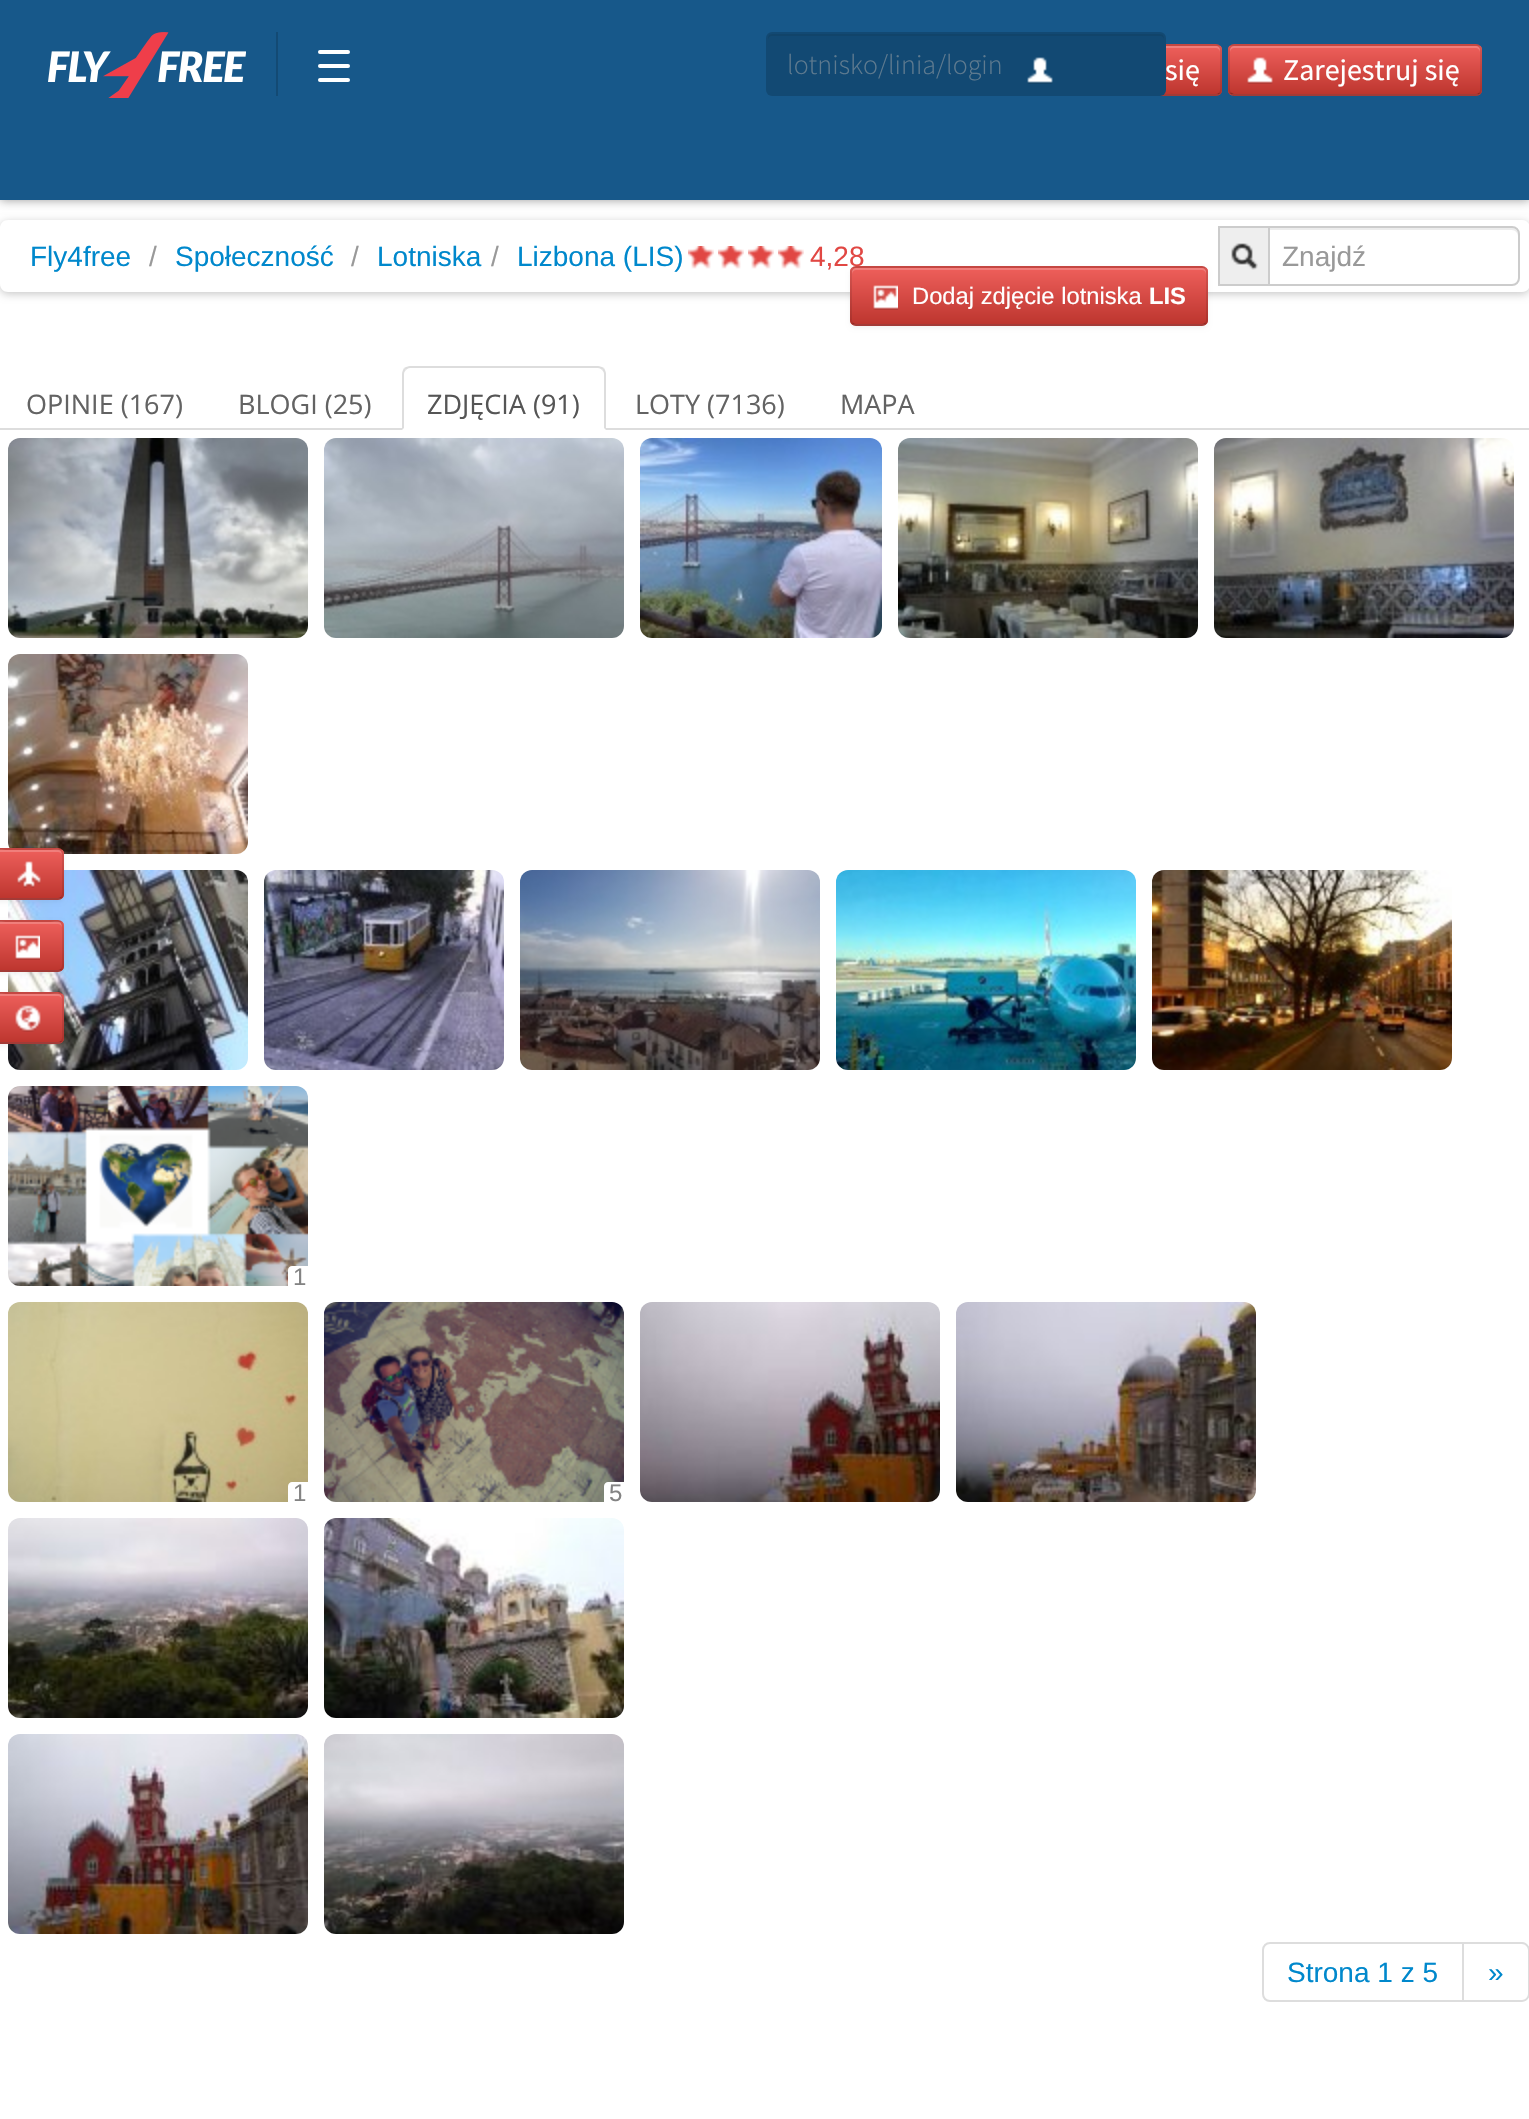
void draw(SkCanvas* canvas) {
    SkPaint paint;
    paint.setAntiAlias(true);
    canvas->clear(0xFFFFFFFF);
    paint.setColor(0x66000000);
    paint.setMaskFilter(SkMaskFilter::MakeBlur(kNormal_SkBlurStyle, 5));
    canvas->drawRect(SkRect::MakeXYWH(0, 0, 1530, 200), paint);
    paint.setMaskFilter(nullptr);
    paint.setColor(0xFF17588A);
    canvas->drawRect(SkRect::MakeXYWH(0, 0, 1529, 200), paint);
    canvas->drawImageRect(SkImages::DeferredFromEncodedData(SkData::MakeFromFileName("img1.png")), SkRect::MakeXYWH(48, 32, 198, 66), SkSamplingOptions());
    paint.setColor(0xFF134A74);
    canvas->drawRect(SkRect::MakeXYWH(276, 32, 2, 64), paint);
    paint.setColor(0xFFFFFFFF);
    canvas->drawRoundRect(SkRect::MakeXYWH(318, 78, 32, 4), 2, 2, paint);
    canvas->drawRoundRect(SkRect::MakeXYWH(318, 50, 32, 4), 2, 2, paint);
    canvas->drawRoundRect(SkRect::MakeXYWH(318, 64, 32, 4), 2, 2, paint);
    paint.setColor(0xFFDA4F49);
    canvas->drawRoundRect(SkRect::MakeXYWH(1008, 44, 214, 52), 6, 6, paint);
    canvas->save();
    canvas->clipPath(SkPathBuilder().moveTo(1014, 44).lineTo(1216, 44).cubicTo(1219.5f, 44, 1222, 46.5f, 1222, 50).lineTo(1222, 90).cubicTo(1222, 93.5f, 1219.5f, 96, 1216, 96).lineTo(1014, 96).cubicTo(1010.5f, 96, 1008, 93.5f, 1008, 90).lineTo(1008, 50).cubicTo(1008, 46.5f, 1010.5f, 44, 1014, 44).close().detach(), true);
    {
        const SkColor colors[] = {0xFFEE5F5B, 0xFFBD362F};
        const float stops[] = {0, 1};
        const SkPoint ends[] = {{1115, 46}, {1115, 94}};
        paint.setShader(SkGradientShader::MakeLinear(ends, colors, stops, 2, SkTileMode::kClamp));
        paint.setAlpha(255);
    }
    canvas->drawRect(SkRect::MakeXYWH(1164, 46, 58, 48), paint);
    canvas->restore();
    paint.setShader(nullptr);
    paint.setColor(0x33FFFFFF);
    canvas->drawPath(SkPathBuilder().moveTo(1014, 48).lineTo(1216, 48).cubicTo(1218, 48, 1220, 50, 1220, 52).cubicTo(1220, 49, 1220, 47, 1217, 46).lineTo(1013, 46).cubicTo(1010, 47, 1010, 49, 1010, 52).cubicTo(1010, 50, 1012, 48, 1014, 48).close().detach(), paint);
    paint.setStyle(SkPaint::kStroke_Style);
    paint.setStrokeWidth(2);
    paint.setColor(0x40000000);
    canvas->drawPath(SkPathBuilder().moveTo(1219.5f, 93.5f).cubicTo(1218.5f, 94.5f, 1217.5f, 95, 1216, 95).lineTo(1014, 95).cubicTo(1012.5f, 95, 1011.5f, 94.5f, 1010.5f, 93.5f).detach(), paint);
    paint.setColor(0x1A000000);
    canvas->drawPath(SkPathBuilder().moveTo(1010.5f, 93.5f).cubicTo(1009.5f, 92.5f, 1009, 91.5f, 1009, 90).lineTo(1009, 50).cubicTo(1009, 48.5f, 1009.5f, 47.5f, 1010.5f, 46.5f).cubicTo(1011.5f, 45.5f, 1012.5f, 45, 1014, 45).lineTo(1216, 45).cubicTo(1217.5f, 45, 1218.5f, 45.5f, 1219.5f, 46.5f).cubicTo(1220.5f, 47.5f, 1221, 48.5f, 1221, 50).lineTo(1221, 90).cubicTo(1221, 91.5f, 1220.5f, 92.5f, 1219.5f, 93.5f).detach(), paint);
    SkFont font1(fontMgr->matchFamilyStyle("Source Sans Pro", SkFontStyle::Normal()), 30);
    font1.setSubpixel(true);
    paint.setStyle(SkPaint::kFill_Style);
    paint.setColor(0xFFFFFFFF);
    canvas->drawString("się", 1165, 80, font1, paint);
    paint.setColor(0xFF124973);
    canvas->drawRoundRect(SkRect::MakeXYWH(766, 32, 400, 64), 6, 6, paint);
    paint.setColor(0xFF11446A);
    canvas->drawPath(SkPathBuilder().moveTo(772, 36).lineTo(1160, 36).cubicTo(1162, 36, 1164, 38, 1164, 40).cubicTo(1164, 37, 1164, 34, 1160, 34).lineTo(772, 34).cubicTo(768, 34, 768, 37, 768, 40).cubicTo(768, 38, 770, 36, 772, 36).close().detach(), paint);
    SkFont font2(fontMgr->matchFamilyStyle("Source Sans Pro", SkFontStyle(300, SkFontStyle::kNormal_Width, SkFontStyle::kUpright_Slant)), 28);
    font2.setSubpixel(true);
    paint.setColor(0xFF5E7A8F);
    canvas->drawString("lotnisko/linia/login", 787, 74, font2, paint);
    canvas->drawImageRect(SkImages::DeferredFromEncodedData(SkData::MakeFromFileName("img2.png")), SkRect::MakeXYWH(1027, 57, 26, 27), SkSamplingOptions());
    paint.setColor(0xFFDA4F49);
    canvas->drawRoundRect(SkRect::MakeXYWH(1228, 44, 254, 52), 6, 6, paint);
    canvas->save();
    canvas->clipPath(SkPathBuilder().moveTo(1234, 44).lineTo(1476, 44).cubicTo(1479.5f, 44, 1482, 46.5f, 1482, 50).lineTo(1482, 90).cubicTo(1482, 93.5f, 1479.5f, 96, 1476, 96).lineTo(1234, 96).cubicTo(1230.5f, 96, 1228, 93.5f, 1228, 90).lineTo(1228, 50).cubicTo(1228, 46.5f, 1230.5f, 44, 1234, 44).close().detach(), true);
    {
        const SkColor colors[] = {0xFFEE5F5B, 0xFFBD362F};
        const float stops[] = {0, 1};
        const SkPoint ends[] = {{1355, 46}, {1355, 94}};
        paint.setShader(SkGradientShader::MakeLinear(ends, colors, stops, 2, SkTileMode::kClamp));
        paint.setAlpha(255);
    }
    canvas->drawRect(SkRect::MakeXYWH(1228, 46, 254, 48), paint);
    canvas->restore();
    paint.setShader(nullptr);
    paint.setColor(0x33FFFFFF);
    canvas->drawPath(SkPathBuilder().moveTo(1234, 48).lineTo(1476, 48).cubicTo(1478, 48, 1480, 50, 1480, 52).lineTo(1480, 50).cubicTo(1480, 48, 1478, 46, 1476, 46).lineTo(1234, 46).cubicTo(1232, 46, 1230, 48, 1230, 50).lineTo(1230, 52).cubicTo(1230, 50, 1232, 48, 1234, 48).close().detach(), paint);
    paint.setStyle(SkPaint::kStroke_Style);
    paint.setColor(0x40000000);
    canvas->drawPath(SkPathBuilder().moveTo(1479.5f, 93.5f).cubicTo(1478.5f, 94.5f, 1477.5f, 95, 1476, 95).lineTo(1233.5f, 95).lineTo(1230.5f, 93.5f).detach(), paint);
    paint.setColor(0x1A000000);
    canvas->drawPath(SkPathBuilder().moveTo(1230.5f, 93.5f).cubicTo(1229.5f, 92.5f, 1229, 91.5f, 1229, 90).lineTo(1229, 50).cubicTo(1229, 48.5f, 1229.5f, 47.5f, 1230.5f, 46.5f).cubicTo(1231.5f, 45.5f, 1232.5f, 45, 1234, 45).lineTo(1476, 45).cubicTo(1477.5f, 45, 1478.5f, 45.5f, 1479.5f, 46.5f).cubicTo(1480.5f, 47.5f, 1481, 48.5f, 1481, 50).lineTo(1481, 90).cubicTo(1481, 91.5f, 1480.5f, 92.5f, 1479.5f, 93.5f).detach(), paint);
    canvas->drawImageRect(SkImages::DeferredFromEncodedData(SkData::MakeFromFileName("img3.png")), SkRect::MakeXYWH(1247, 57, 26, 27), SkSamplingOptions());
    paint.setStyle(SkPaint::kFill_Style);
    paint.setColor(0xFFFFFFFF);
    canvas->drawString("Zarejestruj się", 1283, 80, font1, paint);
    canvas->save();
    canvas->clipPath(SkPathBuilder(SkPathFillType::kEvenOdd).moveTo(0, 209).lineTo(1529, 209).lineTo(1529, 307).lineTo(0, 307).close().moveTo(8, 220).lineTo(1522, 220).cubicTo(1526.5f, 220, 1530, 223.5f, 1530, 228).lineTo(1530, 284).cubicTo(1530, 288.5f, 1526.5f, 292, 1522, 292).lineTo(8, 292).cubicTo(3.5f, 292, 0, 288.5f, 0, 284).lineTo(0, 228).cubicTo(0, 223.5f, 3.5f, 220, 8, 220).close().detach(), true);
    paint.setColor(0x38000000);
    paint.setMaskFilter(SkMaskFilter::MakeBlur(kNormal_SkBlurStyle, 4));
    canvas->drawRoundRect(SkRect::MakeXYWH(0, 222, 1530, 72), 8, 8, paint);
    paint.setMaskFilter(nullptr);
    canvas->restore();
    SkFont font3(fontMgr->matchFamilyStyle("Liberation Sans", SkFontStyle::Normal()), 28);
    font3.setSubpixel(true);
    paint.setColor(0xFF0088CC);
    canvas->drawString("Fly4free", 30, 266, font3, paint);
    paint.setColor(0xFF999999);
    canvas->drawString("/", 149, 266, font3, paint);
    paint.setColor(0xFF0088CC);
    canvas->drawString("Społeczność", 175, 266, font3, paint);
    paint.setColor(0xFF999999);
    canvas->drawString("/", 351, 266, font3, paint);
    paint.setColor(0xFF0088CC);
    canvas->drawString("Lotniska", 377, 266, font3, paint);
    paint.setColor(0xFF999999);
    canvas->drawString("/", 491, 266, font3, paint);
    paint.setColor(0xFF0088CC);
    canvas->drawString("Lizbona (LIS)", 517, 266, font3, paint);
    canvas->drawImageRect(SkImages::DeferredFromEncodedData(SkData::MakeFromFileName("img4.png")), SkRect::MakeXYWH(688, 246, 26, 23), SkSamplingOptions());
    canvas->drawImageRect(SkImages::DeferredFromEncodedData(SkData::MakeFromFileName("img4.png")), SkRect::MakeXYWH(718, 246, 26, 23), SkSamplingOptions());
    canvas->drawImageRect(SkImages::DeferredFromEncodedData(SkData::MakeFromFileName("img4.png")), SkRect::MakeXYWH(748, 246, 26, 23), SkSamplingOptions());
    canvas->drawImageRect(SkImages::DeferredFromEncodedData(SkData::MakeFromFileName("img4.png")), SkRect::MakeXYWH(778, 246, 26, 23), SkSamplingOptions());
    paint.setColor(0x0D000000);
    paint.setMaskFilter(SkMaskFilter::MakeBlur(kNormal_SkBlurStyle, 2));
    canvas->drawRoundRect(SkRect::MakeXYWH(850, 268, 358, 60), 6, 6, paint);
    paint.setMaskFilter(nullptr);
    paint.setColor(0xFFDA4F49);
    canvas->drawRoundRect(SkRect::MakeXYWH(850, 266, 358, 60), 6, 6, paint);
    canvas->save();
    canvas->clipPath(SkPathBuilder().moveTo(856, 266).lineTo(1202, 266).cubicTo(1205.5f, 266, 1208, 268.5f, 1208, 272).lineTo(1208, 320).cubicTo(1208, 323.5f, 1205.5f, 326, 1202, 326).lineTo(856, 326).cubicTo(852.5f, 326, 850, 323.5f, 850, 320).lineTo(850, 272).cubicTo(850, 268.5f, 852.5f, 266, 856, 266).close().detach(), true);
    {
        const SkColor colors[] = {0xFFEE5F5B, 0xFFBD362F};
        const float stops[] = {0, 1};
        const SkPoint ends[] = {{1029, 268}, {1029, 324}};
        paint.setShader(SkGradientShader::MakeLinear(ends, colors, stops, 2, SkTileMode::kClamp));
        paint.setAlpha(255);
    }
    canvas->drawRect(SkRect::MakeXYWH(850, 268, 358, 56), paint);
    canvas->restore();
    paint.setShader(nullptr);
    paint.setColor(0x33FFFFFF);
    canvas->drawPath(SkPathBuilder().moveTo(856, 270).lineTo(1202, 270).cubicTo(1204, 270, 1206, 272, 1206, 274).lineTo(1206, 272).cubicTo(1206, 270, 1204, 268, 1202, 268).lineTo(856, 268).cubicTo(854, 268, 852, 270, 852, 272).lineTo(852, 274).cubicTo(852, 272, 854, 270, 856, 270).close().detach(), paint);
    paint.setStyle(SkPaint::kStroke_Style);
    paint.setColor(0x40000000);
    canvas->drawPath(SkPathBuilder().moveTo(1205.5f, 323.5f).cubicTo(1204.5f, 324.5f, 1203.5f, 325, 1202, 325).lineTo(856, 325).cubicTo(854.5f, 325, 853.5f, 324.5f, 852.5f, 323.5f).detach(), paint);
    paint.setColor(0x1A000000);
    canvas->drawPath(SkPathBuilder().moveTo(852.5f, 323.5f).cubicTo(851.5f, 322.5f, 851, 321.5f, 851, 320).lineTo(851, 272).cubicTo(851, 270.5f, 851.5f, 269.5f, 852.5f, 268.5f).cubicTo(853.5f, 267.5f, 854.5f, 267, 856, 267).lineTo(1202, 267).cubicTo(1203.5f, 267, 1204.5f, 267.5f, 1205.5f, 268.5f).cubicTo(1206.5f, 269.5f, 1207, 270.5f, 1207, 272).lineTo(1207, 320).cubicTo(1207, 321.5f, 1206.5f, 322.5f, 1205.5f, 323.5f).detach(), paint);
    paint.setStyle(SkPaint::kFill_Style);
    paint.setColor(0xFFE14743);
    canvas->drawString("4,28", 810, 266, font3, paint);
    paint.setColor(0xFFEEEEEE);
    canvas->drawRect(SkRect::MakeXYWH(1219, 227, 50, 58), paint);
    paint.setStyle(SkPaint::kStroke_Style);
    paint.setColor(0xFFCCCCCC);
    canvas->drawRect(SkRect::MakeXYWH(1219, 227, 50, 58), paint);
    canvas->drawImageRect(SkImages::DeferredFromEncodedData(SkData::MakeFromFileName("img5.png")), SkRect::MakeXYWH(1231, 243, 27, 27), SkSamplingOptions());
    paint.setStyle(SkPaint::kFill_Style);
    paint.setColor(0xFFFFFFFF);
    canvas->drawPath(SkPathBuilder().moveTo(1268, 226).lineTo(1512, 226).cubicTo(1516.5f, 226, 1520, 229.5f, 1520, 234).lineTo(1520, 278).cubicTo(1520, 282.5f, 1516.5f, 286, 1512, 286).lineTo(1268, 286).close().detach(), paint);
    paint.setColor(0xFFECECEC);
    canvas->drawPath(SkPathBuilder().moveTo(1270, 230).lineTo(1512, 230).cubicTo(1515, 230, 1518, 233, 1518, 236).lineTo(1518, 234).cubicTo(1518, 231, 1515, 228, 1512, 228).lineTo(1270, 228).close().detach(), paint);
    paint.setStyle(SkPaint::kStroke_Style);
    paint.setColor(0xFFCCCCCC);
    canvas->drawPath(SkPathBuilder().moveTo(1269, 227).lineTo(1512, 227).cubicTo(1516, 227, 1519, 230, 1519, 234).lineTo(1519, 278).cubicTo(1519, 282, 1516, 285, 1512, 285).lineTo(1269, 285).close().detach(), paint);
    paint.setStyle(SkPaint::kFill_Style);
    paint.setColor(0xFF999999);
    canvas->drawString("Znajdź", 1282, 266, font3, paint);
    canvas->drawImageRect(SkImages::DeferredFromEncodedData(SkData::MakeFromFileName("img6.png")), SkRect::MakeXYWH(873, 285, 25, 25), SkSamplingOptions());
    SkFont font4(fontMgr->matchFamilyStyle("Liberation Sans", SkFontStyle::Normal()), 23.75f);
    font4.setSubpixel(true);
    paint.setColor(0xFFFFFFFF);
    canvas->drawString("Dodaj zdjęcie lotniska", 912, 304, font4, paint);
    SkFont font5(fontMgr->matchFamilyStyle("Liberation Sans", SkFontStyle::Bold()), 23.75f);
    font5.setSubpixel(true);
    canvas->drawString("LIS", 1149, 304, font5, paint);
    paint.setColor(0xFFDDDDDD);
    canvas->drawRect(SkRect::MakeXYWH(0, 428, 1529, 2), paint);
    SkFont font6(fontMgr->matchFamilyStyle("Open Sans", SkFontStyle::Normal()), 27);
    font6.setSubpixel(true);
    paint.setColor(0xFF636363);
    canvas->drawString("OPINIE (167)", 26, 414, font6, paint);
    canvas->drawString("BLOGI (25)", 238, 414, font6, paint);
    paint.setColor(0xFFFFFFFF);
    canvas->drawPath(SkPathBuilder().moveTo(410, 366).lineTo(598, 366).cubicTo(602.5f, 366, 606, 369.5f, 606, 374).lineTo(606, 430).lineTo(402, 430).lineTo(402, 374).cubicTo(402, 369.5f, 405.5f, 366, 410, 366).close().detach(), paint);
    paint.setColor(0xFFDDDDDD);
    canvas->drawPath(SkPathBuilder().moveTo(410, 366).cubicTo(408, 366, 406, 367, 404, 368).lineTo(406, 370).cubicTo(407, 369, 408, 368, 410, 368).lineTo(598, 368).cubicTo(600, 368, 601, 369, 602, 370).lineTo(604, 368).cubicTo(602, 367, 600, 366, 598, 366).close().detach(), paint);
    canvas->drawPath(SkPathBuilder().moveTo(606, 430).lineTo(606, 374).cubicTo(606, 372, 605, 370, 604, 368).lineTo(602, 370).cubicTo(603, 371, 604, 372, 604, 374).lineTo(604, 428).close().detach(), paint);
    canvas->drawPath(SkPathBuilder().moveTo(402, 430).lineTo(404, 428).lineTo(404, 374).cubicTo(404, 372, 405, 371, 406, 370).lineTo(404, 368).cubicTo(403, 370, 402, 372, 402, 374).close().detach(), paint);
    paint.setColor(0xFF555555);
    canvas->drawString("ZDJĘCIA (91)", 427, 414, font6, paint);
    paint.setColor(0xFF636363);
    canvas->drawString("LOTY (7136)", 635, 414, font6, paint);
    canvas->drawString("MAPA", 840, 414, font6, paint);
    canvas->drawImageRect(SkImages::DeferredFromEncodedData(SkData::MakeFromFileName("img7.png")), SkRect::MakeXYWH(8, 438, 300, 200), SkSamplingOptions());
    canvas->drawImageRect(SkImages::DeferredFromEncodedData(SkData::MakeFromFileName("img8.png")), SkRect::MakeXYWH(324, 438, 300, 200), SkSamplingOptions());
    canvas->drawImageRect(SkImages::DeferredFromEncodedData(SkData::MakeFromFileName("img9.png")), SkRect::MakeXYWH(640, 438, 242, 200), SkSamplingOptions());
    canvas->drawImageRect(SkImages::DeferredFromEncodedData(SkData::MakeFromFileName("img10.png")), SkRect::MakeXYWH(898, 438, 300, 200), SkSamplingOptions());
    canvas->drawImageRect(SkImages::DeferredFromEncodedData(SkData::MakeFromFileName("img11.png")), SkRect::MakeXYWH(1214, 438, 300, 200), SkSamplingOptions());
    canvas->drawImageRect(SkImages::DeferredFromEncodedData(SkData::MakeFromFileName("img12.png")), SkRect::MakeXYWH(8, 654, 240, 200), SkSamplingOptions());
    canvas->drawImageRect(SkImages::DeferredFromEncodedData(SkData::MakeFromFileName("img13.png")), SkRect::MakeXYWH(8, 870, 240, 200), SkSamplingOptions());
    canvas->drawImageRect(SkImages::DeferredFromEncodedData(SkData::MakeFromFileName("img14.png")), SkRect::MakeXYWH(264, 870, 240, 200), SkSamplingOptions());
    canvas->drawImageRect(SkImages::DeferredFromEncodedData(SkData::MakeFromFileName("img15.png")), SkRect::MakeXYWH(520, 870, 300, 200), SkSamplingOptions());
    canvas->drawImageRect(SkImages::DeferredFromEncodedData(SkData::MakeFromFileName("img16.png")), SkRect::MakeXYWH(836, 870, 300, 200), SkSamplingOptions());
    canvas->drawImageRect(SkImages::DeferredFromEncodedData(SkData::MakeFromFileName("img17.png")), SkRect::MakeXYWH(1152, 870, 300, 200), SkSamplingOptions());
    canvas->drawImageRect(SkImages::DeferredFromEncodedData(SkData::MakeFromFileName("img18.png")), SkRect::MakeXYWH(8, 1086, 300, 200), SkSamplingOptions());
    paint.setColor(0xFFFFFFFF);
    canvas->drawPath(SkPathBuilder().moveTo(292, 1266).lineTo(308, 1266).lineTo(308, 1290).lineTo(288, 1290).lineTo(288, 1270).cubicTo(288, 1268, 290, 1266, 292, 1266).close().detach(), paint);
    SkFont font7(fontMgr->matchFamilyStyle("Liberation Sans", SkFontStyle::Normal()), 24);
    font7.setSubpixel(true);
    paint.setColor(0xFF838383);
    canvas->drawString("1", 293, 1285, font7, paint);
    canvas->drawImageRect(SkImages::DeferredFromEncodedData(SkData::MakeFromFileName("img19.png")), SkRect::MakeXYWH(8, 1302, 300, 200), SkSamplingOptions());
    paint.setColor(0xFFFFFFFF);
    canvas->drawPath(SkPathBuilder().moveTo(292, 1482).lineTo(308, 1482).lineTo(308, 1506).lineTo(288, 1506).lineTo(288, 1486).cubicTo(288, 1484, 290, 1482, 292, 1482).close().detach(), paint);
    paint.setColor(0xFF838383);
    canvas->drawString("1", 293, 1501, font7, paint);
    canvas->drawImageRect(SkImages::DeferredFromEncodedData(SkData::MakeFromFileName("img20.png")), SkRect::MakeXYWH(324, 1302, 300, 200), SkSamplingOptions());
    paint.setColor(0xFFFFFFFF);
    canvas->drawPath(SkPathBuilder().moveTo(608, 1482).lineTo(624, 1482).lineTo(624, 1506).lineTo(604, 1506).lineTo(604, 1486).cubicTo(604, 1484, 606, 1482, 608, 1482).close().detach(), paint);
    paint.setColor(0xFF838383);
    canvas->drawString("5", 609, 1501, font7, paint);
    canvas->drawImageRect(SkImages::DeferredFromEncodedData(SkData::MakeFromFileName("img21.png")), SkRect::MakeXYWH(640, 1302, 300, 200), SkSamplingOptions());
    canvas->drawImageRect(SkImages::DeferredFromEncodedData(SkData::MakeFromFileName("img22.png")), SkRect::MakeXYWH(956, 1302, 300, 200), SkSamplingOptions());
    canvas->drawImageRect(SkImages::DeferredFromEncodedData(SkData::MakeFromFileName("img23.png")), SkRect::MakeXYWH(8, 1518, 300, 200), SkSamplingOptions());
    canvas->drawImageRect(SkImages::DeferredFromEncodedData(SkData::MakeFromFileName("img24.png")), SkRect::MakeXYWH(324, 1518, 300, 200), SkSamplingOptions());
    canvas->drawImageRect(SkImages::DeferredFromEncodedData(SkData::MakeFromFileName("img25.png")), SkRect::MakeXYWH(8, 1734, 300, 200), SkSamplingOptions());
    canvas->drawImageRect(SkImages::DeferredFromEncodedData(SkData::MakeFromFileName("img26.png")), SkRect::MakeXYWH(324, 1734, 300, 200), SkSamplingOptions());
    paint.setStyle(SkPaint::kStroke_Style);
    paint.setColor(0xFFDDDDDD);
    canvas->drawPath(SkPathBuilder().moveTo(1270, 1943).lineTo(1463, 1943).lineTo(1463, 2001).lineTo(1270, 2001).cubicTo(1266, 2001, 1263, 1998, 1263, 1994).lineTo(1263, 1950).cubicTo(1263, 1946, 1266, 1943, 1270, 1943).close().detach(), paint);
    paint.setStyle(SkPaint::kFill_Style);
    paint.setColor(0xFF0088CC);
    canvas->drawString("Strona 1 z 5", 1287, 1982, font3, paint);
    paint.setColor(0xFFDDDDDD);
    canvas->drawPath(SkPathBuilder(SkPathFillType::kEvenOdd).moveTo(1464, 1942).lineTo(1522, 1942).cubicTo(1526, 1942, 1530, 1946, 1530, 1950).lineTo(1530, 1994).cubicTo(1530, 1998, 1526, 2002, 1522, 2002).lineTo(1464, 2002).close().moveTo(1464, 1944).lineTo(1522, 1944).cubicTo(1525, 1944, 1528, 1947, 1528, 1950).lineTo(1528, 1994).cubicTo(1528, 1997, 1525, 2000, 1522, 2000).lineTo(1464, 2000).close().detach(), paint);
    paint.setColor(0xFF0088CC);
    canvas->drawString("»", 1488, 1982, font3, paint);
    paint.setColor(0x0D000000);
    paint.setMaskFilter(SkMaskFilter::MakeBlur(kNormal_SkBlurStyle, 2));
    canvas->drawRoundRect(SkRect::MakeXYWH(-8, 850, 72, 52), 6, 6, paint);
    paint.setMaskFilter(nullptr);
    paint.setColor(0xFFDA4F49);
    canvas->drawRoundRect(SkRect::MakeXYWH(-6, 848, 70, 52), 6, 6, paint);
    canvas->save();
    canvas->clipPath(SkPathBuilder().moveTo(-2, 848).lineTo(58, 848).cubicTo(61.5f, 848, 64, 850.5f, 64, 854).lineTo(64, 894).cubicTo(64, 897.5f, 61.5f, 900, 58, 900).lineTo(-2, 900).cubicTo(-5.5f, 900, -8, 897.5f, -8, 894).lineTo(-8, 854).cubicTo(-8, 850.5f, -5.5f, 848, -2, 848).close().detach(), true);
    {
        const SkColor colors[] = {0xFFEE5F5B, 0xFFBD362F};
        const float stops[] = {0, 1};
        const SkPoint ends[] = {{28, 850}, {28, 898}};
        paint.setShader(SkGradientShader::MakeLinear(ends, colors, stops, 2, SkTileMode::kClamp));
        paint.setAlpha(255);
    }
    canvas->drawRect(SkRect::MakeXYWH(0, 850, 64, 48), paint);
    canvas->restore();
    paint.setShader(nullptr);
    paint.setColor(0x33FFFFFF);
    canvas->drawPath(SkPathBuilder().moveTo(-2, 852).lineTo(58, 852).cubicTo(60, 852, 62, 854, 62, 856).cubicTo(62, 847, 56, 850, 48, 850).lineTo(8, 850).cubicTo(0, 850, -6, 847, -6, 856).cubicTo(-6, 854, -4, 852, -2, 852).close().detach(), paint);
    paint.setStyle(SkPaint::kStroke_Style);
    paint.setColor(0x40000000);
    canvas->drawPath(SkPathBuilder().moveTo(61.5f, 897.5f).cubicTo(60.5f, 898.5f, 59.5f, 899, 58, 899).lineTo(-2, 899).cubicTo(-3.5f, 899, -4.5f, 898.5f, -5.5f, 897.5f).detach(), paint);
    paint.setColor(0x1A000000);
    canvas->drawPath(SkPathBuilder().moveTo(-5.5f, 897.5f).cubicTo(-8, 895, -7, 890, -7, 887.5f).lineTo(-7, 860.5f).cubicTo(-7, 847, -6, 849, 8, 849).lineTo(48, 849).cubicTo(62, 849, 63, 847, 63, 860.5f).lineTo(63, 887.5f).cubicTo(63, 890, 64, 895, 61.5f, 897.5f).detach(), paint);
    canvas->drawImageRect(SkImages::DeferredFromEncodedData(SkData::MakeFromFileName("img27.png")), SkRect::MakeXYWH(17, 861, 24, 27), SkSamplingOptions());
    paint.setStyle(SkPaint::kFill_Style);
    paint.setColor(0x0D000000);
    paint.setMaskFilter(SkMaskFilter::MakeBlur(kNormal_SkBlurStyle, 2));
    canvas->drawRoundRect(SkRect::MakeXYWH(-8, 922, 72, 52), 6, 6, paint);
    paint.setMaskFilter(nullptr);
    paint.setColor(0xFFDA4F49);
    canvas->drawRoundRect(SkRect::MakeXYWH(-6, 920, 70, 52), 6, 6, paint);
    canvas->save();
    canvas->clipPath(SkPathBuilder().moveTo(-2, 920).lineTo(58, 920).cubicTo(61.5f, 920, 64, 922.5f, 64, 926).lineTo(64, 966).cubicTo(64, 969.5f, 61.5f, 972, 58, 972).lineTo(-2, 972).cubicTo(-5.5f, 972, -8, 969.5f, -8, 966).lineTo(-8, 926).cubicTo(-8, 922.5f, -5.5f, 920, -2, 920).close().detach(), true);
    {
        const SkColor colors[] = {0xFFEE5F5B, 0xFFBD362F};
        const float stops[] = {0, 1};
        const SkPoint ends[] = {{28, 922}, {28, 970}};
        paint.setShader(SkGradientShader::MakeLinear(ends, colors, stops, 2, SkTileMode::kClamp));
        paint.setAlpha(255);
    }
    canvas->drawRect(SkRect::MakeXYWH(0, 922, 64, 48), paint);
    canvas->restore();
    paint.setShader(nullptr);
    paint.setColor(0x33FFFFFF);
    canvas->drawPath(SkPathBuilder().moveTo(-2, 924).lineTo(58, 924).cubicTo(60, 924, 62, 926, 62, 928).cubicTo(62, 919, 56, 922, 48, 922).lineTo(8, 922).cubicTo(0, 922, -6, 919, -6, 928).cubicTo(-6, 926, -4, 924, -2, 924).close().detach(), paint);
    paint.setStyle(SkPaint::kStroke_Style);
    paint.setColor(0x40000000);
    canvas->drawPath(SkPathBuilder().moveTo(61.5f, 969.5f).cubicTo(60.5f, 970.5f, 59.5f, 971, 58, 971).lineTo(-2, 971).cubicTo(-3.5f, 971, -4.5f, 970.5f, -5.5f, 969.5f).detach(), paint);
    paint.setColor(0x1A000000);
    canvas->drawPath(SkPathBuilder().moveTo(-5.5f, 969.5f).cubicTo(-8, 967, -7, 962, -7, 959.5f).lineTo(-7, 932.5f).cubicTo(-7, 919, -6, 921, 8, 921).lineTo(48, 921).cubicTo(62, 921, 63, 919, 63, 932.5f).lineTo(63, 959.5f).cubicTo(63, 962, 64, 967, 61.5f, 969.5f).detach(), paint);
    canvas->drawImageRect(SkImages::DeferredFromEncodedData(SkData::MakeFromFileName("img28.png")), SkRect::MakeXYWH(15, 935, 25, 25), SkSamplingOptions());
    paint.setStyle(SkPaint::kFill_Style);
    paint.setColor(0x0D000000);
    paint.setMaskFilter(SkMaskFilter::MakeBlur(kNormal_SkBlurStyle, 2));
    canvas->drawRoundRect(SkRect::MakeXYWH(-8, 994, 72, 52), 6, 6, paint);
    paint.setMaskFilter(nullptr);
    paint.setColor(0xFFDA4F49);
    canvas->drawRoundRect(SkRect::MakeXYWH(-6, 992, 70, 52), 6, 6, paint);
    canvas->save();
    canvas->clipPath(SkPathBuilder().moveTo(-2, 992).lineTo(58, 992).cubicTo(61.5f, 992, 64, 994.5f, 64, 998).lineTo(64, 1038).cubicTo(64, 1041.5f, 61.5f, 1044, 58, 1044).lineTo(-2, 1044).cubicTo(-5.5f, 1044, -8, 1041.5f, -8, 1038).lineTo(-8, 998).cubicTo(-8, 994.5f, -5.5f, 992, -2, 992).close().detach(), true);
    {
        const SkColor colors[] = {0xFFEE5F5B, 0xFFBD362F};
        const float stops[] = {0, 1};
        const SkPoint ends[] = {{28, 994}, {28, 1042}};
        paint.setShader(SkGradientShader::MakeLinear(ends, colors, stops, 2, SkTileMode::kClamp));
        paint.setAlpha(255);
    }
    canvas->drawRect(SkRect::MakeXYWH(0, 994, 64, 48), paint);
    canvas->restore();
    paint.setShader(nullptr);
    paint.setColor(0x33FFFFFF);
    canvas->drawPath(SkPathBuilder().moveTo(-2, 996).lineTo(58, 996).cubicTo(60, 996, 62, 998, 62, 1000).cubicTo(62, 991, 56, 994, 48, 994).lineTo(8, 994).cubicTo(0, 994, -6, 991, -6, 1000).cubicTo(-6, 998, -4, 996, -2, 996).close().detach(), paint);
    paint.setStyle(SkPaint::kStroke_Style);
    paint.setColor(0x40000000);
    canvas->drawPath(SkPathBuilder().moveTo(61.5f, 1041.5f).cubicTo(60.5f, 1042.5f, 59.5f, 1043, 58, 1043).lineTo(-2, 1043).cubicTo(-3.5f, 1043, -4.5f, 1042.5f, -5.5f, 1041.5f).detach(), paint);
    paint.setColor(0x1A000000);
    canvas->drawPath(SkPathBuilder().moveTo(-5.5f, 1041.5f).cubicTo(-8, 1039, -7, 1034, -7, 1031.5f).lineTo(-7, 1004.5f).cubicTo(-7, 991, -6, 993, 8, 993).lineTo(48, 993).cubicTo(62, 993, 63, 991, 63, 1004.5f).lineTo(63, 1031.5f).cubicTo(63, 1034, 64, 1039, 61.5f, 1041.5f).detach(), paint);
    canvas->drawImageRect(SkImages::DeferredFromEncodedData(SkData::MakeFromFileName("img29.png")), SkRect::MakeXYWH(15, 1005, 26, 27), SkSamplingOptions());
}
